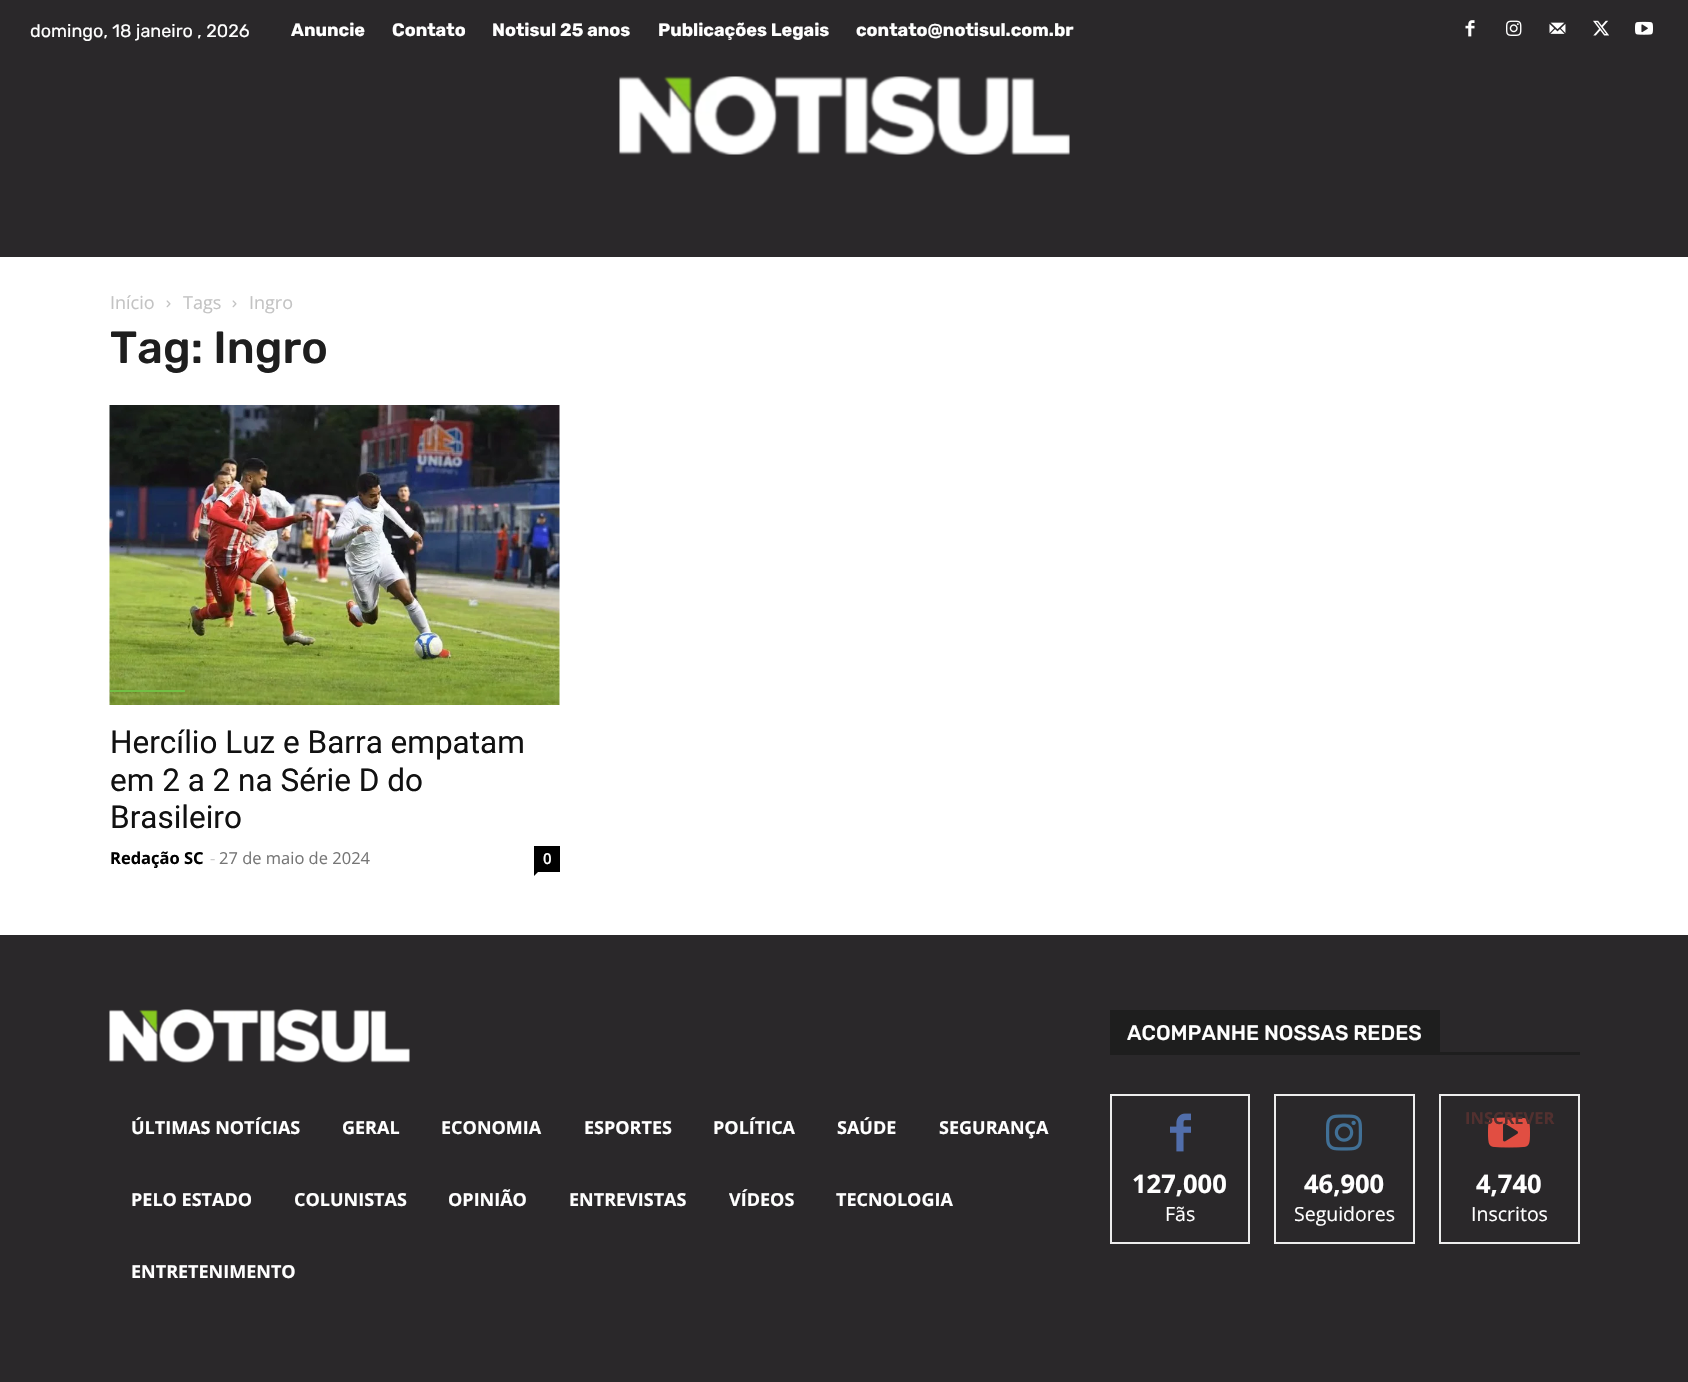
void draw(SkCanvas* canvas) {
    SkPaint paint;
    paint.setAntiAlias(true);
    canvas->clear(0xFFFFFFFF);
    paint.setColor(0xFF2A282A);
    canvas->drawRect(SkRect::MakeXYWH(0, 0, 1688, 257), paint);
    SkFont font1(fontMgr->matchFamilyStyle("Rubik", SkFontStyle::Normal()), 18);
    font1.setSubpixel(true);
    paint.setColor(0xFFFFFFFF);
    canvas->drawString("domingo, 18 janeiro , 2026", 30, 37, font1, paint);
    SkFont font2(fontMgr->matchFamilyStyle("Rubik", SkFontStyle::Bold()), 18);
    font2.setSubpixel(true);
    canvas->drawString("Anuncie", 291, 36, font2, paint);
    canvas->drawString("Contato", 392, 36, font2, paint);
    canvas->drawString("Notisul 25 anos", 492, 36, font2, paint);
    canvas->drawString("Publicações Legais", 658, 36, font2, paint);
    canvas->drawString("contato@notisul.com.br", 856, 36, font2, paint);
    canvas->drawImageRect(SkImages::DeferredFromEncodedData(SkData::MakeFromFileName("img1.png")), SkRect::MakeXYWH(1465, 20, 10, 17), SkSamplingOptions());
    canvas->drawImageRect(SkImages::DeferredFromEncodedData(SkData::MakeFromFileName("img2.png")), SkRect::MakeXYWH(1506, 20, 16, 16), SkSamplingOptions());
    canvas->drawImageRect(SkImages::DeferredFromEncodedData(SkData::MakeFromFileName("img3.png")), SkRect::MakeXYWH(1549, 22, 17, 12), SkSamplingOptions());
    canvas->drawImageRect(SkImages::DeferredFromEncodedData(SkData::MakeFromFileName("img4.png")), SkRect::MakeXYWH(1593, 20, 16, 16), SkSamplingOptions());
    canvas->drawImageRect(SkImages::DeferredFromEncodedData(SkData::MakeFromFileName("img5.png")), SkRect::MakeXYWH(1635, 21, 18, 14), SkSamplingOptions());
    canvas->drawImageRect(SkImages::DeferredFromEncodedData(SkData::MakeFromFileName("img6.png")), SkRect::MakeXYWH(619, 76, 451, 79), SkSamplingOptions());
    SkFont font3(fontMgr->matchFamilyStyle("Open Sans", SkFontStyle::Normal()), 18);
    font3.setSubpixel(true);
    paint.setColor(0xFFC3C3C3);
    canvas->drawString("Início", 110, 309, font3, paint);
    canvas->drawImageRect(SkImages::DeferredFromEncodedData(SkData::MakeFromFileName("img7.png")), SkRect::MakeXYWH(166, 300, 5, 8), SkSamplingOptions());
    canvas->drawString("Tags", 183, 309, font3, paint);
    canvas->drawImageRect(SkImages::DeferredFromEncodedData(SkData::MakeFromFileName("img7.png")), SkRect::MakeXYWH(232, 300, 5, 8), SkSamplingOptions());
    canvas->drawString("Ingro", 249, 309, font3, paint);
    SkFont font4(fontMgr->matchFamilyStyle("Rubik", SkFontStyle(500, SkFontStyle::kNormal_Width, SkFontStyle::kUpright_Slant)), 45);
    font4.setSubpixel(true);
    paint.setColor(0xFF1E1E1E);
    canvas->drawString("Tag: Ingro", 110, 363, font4, paint);
    canvas->drawImageRect(SkImages::DeferredFromEncodedData(SkData::MakeFromFileName("img8.png")), SkRect::MakeXYWH(109, 405, 451, 300), SkSamplingOptions());
    paint.setColor(0xFF72BF44);
    canvas->drawRect(SkRect::MakeXYWH(110, 690, 75, 2), paint);
    SkFont font5(fontMgr->matchFamilyStyle("Roboto", SkFontStyle::Normal()), 31.5f);
    font5.setSubpixel(true);
    paint.setColor(0xFF111111);
    canvas->drawString("Hercílio Luz e Barra empatam", 110, 753, font5, paint);
    canvas->drawString("em 2 a 2 na Série D do", 110, 791, font5, paint);
    canvas->drawString("Brasileiro", 110, 828, font5, paint);
    SkFont font6(fontMgr->matchFamilyStyle("Open Sans", SkFontStyle::Bold()), 16.5f);
    font6.setSubpixel(true);
    paint.setColor(0xFF000000);
    canvas->drawString("Redação SC", 110, 864, font6, paint);
    SkFont font7(fontMgr->matchFamilyStyle("Open Sans", SkFontStyle::Normal()), 16.5f);
    font7.setSubpixel(true);
    paint.setColor(0xFFCCCCCC);
    canvas->drawString("-", 210, 864, font7, paint);
    paint.setColor(0xFF767676);
    canvas->drawString("27 de maio de 2024", 219, 864, font7, paint);
    paint.setColor(0xFF000000);
    canvas->drawRect(SkRect::MakeXYWH(534, 846, 26, 26), paint);
    SkFont font8(fontMgr->matchFamilyStyle("Open Sans", SkFontStyle(600, SkFontStyle::kNormal_Width, SkFontStyle::kUpright_Slant)), 15);
    font8.setSubpixel(true);
    paint.setColor(0xFFFFFFFF);
    canvas->drawString("0", 543, 864, font8, paint);
    paint.setColor(0xFF000000);
    canvas->drawPath(SkPathBuilder().moveTo(534, 871.5f).lineTo(538.5f, 871.5f).lineTo(534, 876).close().detach(), paint);
    paint.setColor(0xFF2A282A);
    canvas->drawRect(SkRect::MakeXYWH(0, 935, 1688, 447), paint);
    canvas->drawImageRect(SkImages::DeferredFromEncodedData(SkData::MakeFromFileName("img9.png")), SkRect::MakeXYWH(109, 1009, 301, 54), SkSamplingOptions());
    SkFont font9(fontMgr->matchFamilyStyle("Open Sans", SkFontStyle::Bold()), 18);
    font9.setSubpixel(true);
    paint.setColor(0xFFFFFFFF);
    canvas->drawString("ÚLTIMAS NOTÍCIAS", 131, 1134, font9, paint);
    canvas->drawString("GERAL", 342, 1134, font9, paint);
    canvas->drawString("ECONOMIA", 441, 1134, font9, paint);
    canvas->drawString("ESPORTES", 584, 1134, font9, paint);
    canvas->drawString("POLÍTICA", 713, 1134, font9, paint);
    canvas->drawString("SAÚDE", 837, 1134, font9, paint);
    canvas->drawString("SEGURANÇA", 939, 1134, font9, paint);
    canvas->drawString("PELO ESTADO", 131, 1206, font9, paint);
    canvas->drawString("COLUNISTAS", 294, 1206, font9, paint);
    canvas->drawString("OPINIÃO", 448, 1206, font9, paint);
    canvas->drawString("ENTREVISTAS", 569, 1206, font9, paint);
    canvas->drawString("VÍDEOS", 729, 1206, font9, paint);
    canvas->drawString("TECNOLOGIA", 836, 1206, font9, paint);
    canvas->drawString("ENTRETENIMENTO", 131, 1278, font9, paint);
    paint.setColor(0xFF1E1E1E);
    canvas->drawRect(SkRect::MakeXYWH(1110, 1052, 470, 3), paint);
    canvas->drawRect(SkRect::MakeXYWH(1110, 1010, 330, 42), paint);
    SkFont font10(fontMgr->matchFamilyStyle("Rubik", SkFontStyle(500, SkFontStyle::kNormal_Width, SkFontStyle::kUpright_Slant)), 21);
    font10.setSubpixel(true);
    paint.setColor(0xFFFFFFFF);
    canvas->drawString("ACOMPANHE NOSSAS REDES", 1127, 1040, font10, paint);
    paint.setStyle(SkPaint::kStroke_Style);
    paint.setStrokeWidth(2);
    paint.setColor(0xFFEDEDED);
    canvas->drawRect(SkRect::MakeXYWH(1111, 1095, 138, 148), paint);
    canvas->drawImageRect(SkImages::DeferredFromEncodedData(SkData::MakeFromFileName("img10.png")), SkRect::MakeXYWH(1170, 1113, 21, 39), SkSamplingOptions());
    SkFont font11(fontMgr->matchFamilyStyle("Open Sans", SkFontStyle::Bold()), 25.5f);
    font11.setSubpixel(true);
    paint.setStyle(SkPaint::kFill_Style);
    paint.setColor(0xFFFFFFFF);
    canvas->drawString("127,000", 1132, 1193, font11, paint);
    SkFont font12(fontMgr->matchFamilyStyle("Open Sans", SkFontStyle::Normal()), 19.5f);
    font12.setSubpixel(true);
    canvas->drawString("Fãs", 1165, 1221, font12, paint);
    paint.setStyle(SkPaint::kStroke_Style);
    paint.setColor(0xFFEDEDED);
    canvas->drawRect(SkRect::MakeXYWH(1275, 1095, 139, 148), paint);
    canvas->drawImageRect(SkImages::DeferredFromEncodedData(SkData::MakeFromFileName("img11.png")), SkRect::MakeXYWH(1326, 1114, 36, 37), SkSamplingOptions());
    paint.setStyle(SkPaint::kFill_Style);
    paint.setColor(0xFFFFFFFF);
    canvas->drawString("46,900", 1304, 1193, font11, paint);
    canvas->drawString("Seguidores", 1294, 1221, font12, paint);
    paint.setStyle(SkPaint::kStroke_Style);
    paint.setColor(0xFFEDEDED);
    canvas->drawRect(SkRect::MakeXYWH(1440, 1095, 139, 148), paint);
    canvas->drawImageRect(SkImages::DeferredFromEncodedData(SkData::MakeFromFileName("img12.png")), SkRect::MakeXYWH(1488, 1117, 42, 31), SkSamplingOptions());
    paint.setStyle(SkPaint::kFill_Style);
    paint.setColor(0xFF52302F);
    canvas->drawString("INSCREVER", 1465, 1124, font6, paint);
    paint.setColor(0xFFFFFFFF);
    canvas->drawString("4,740", 1476, 1193, font11, paint);
    canvas->drawString("Inscritos", 1471, 1221, font12, paint);
}
